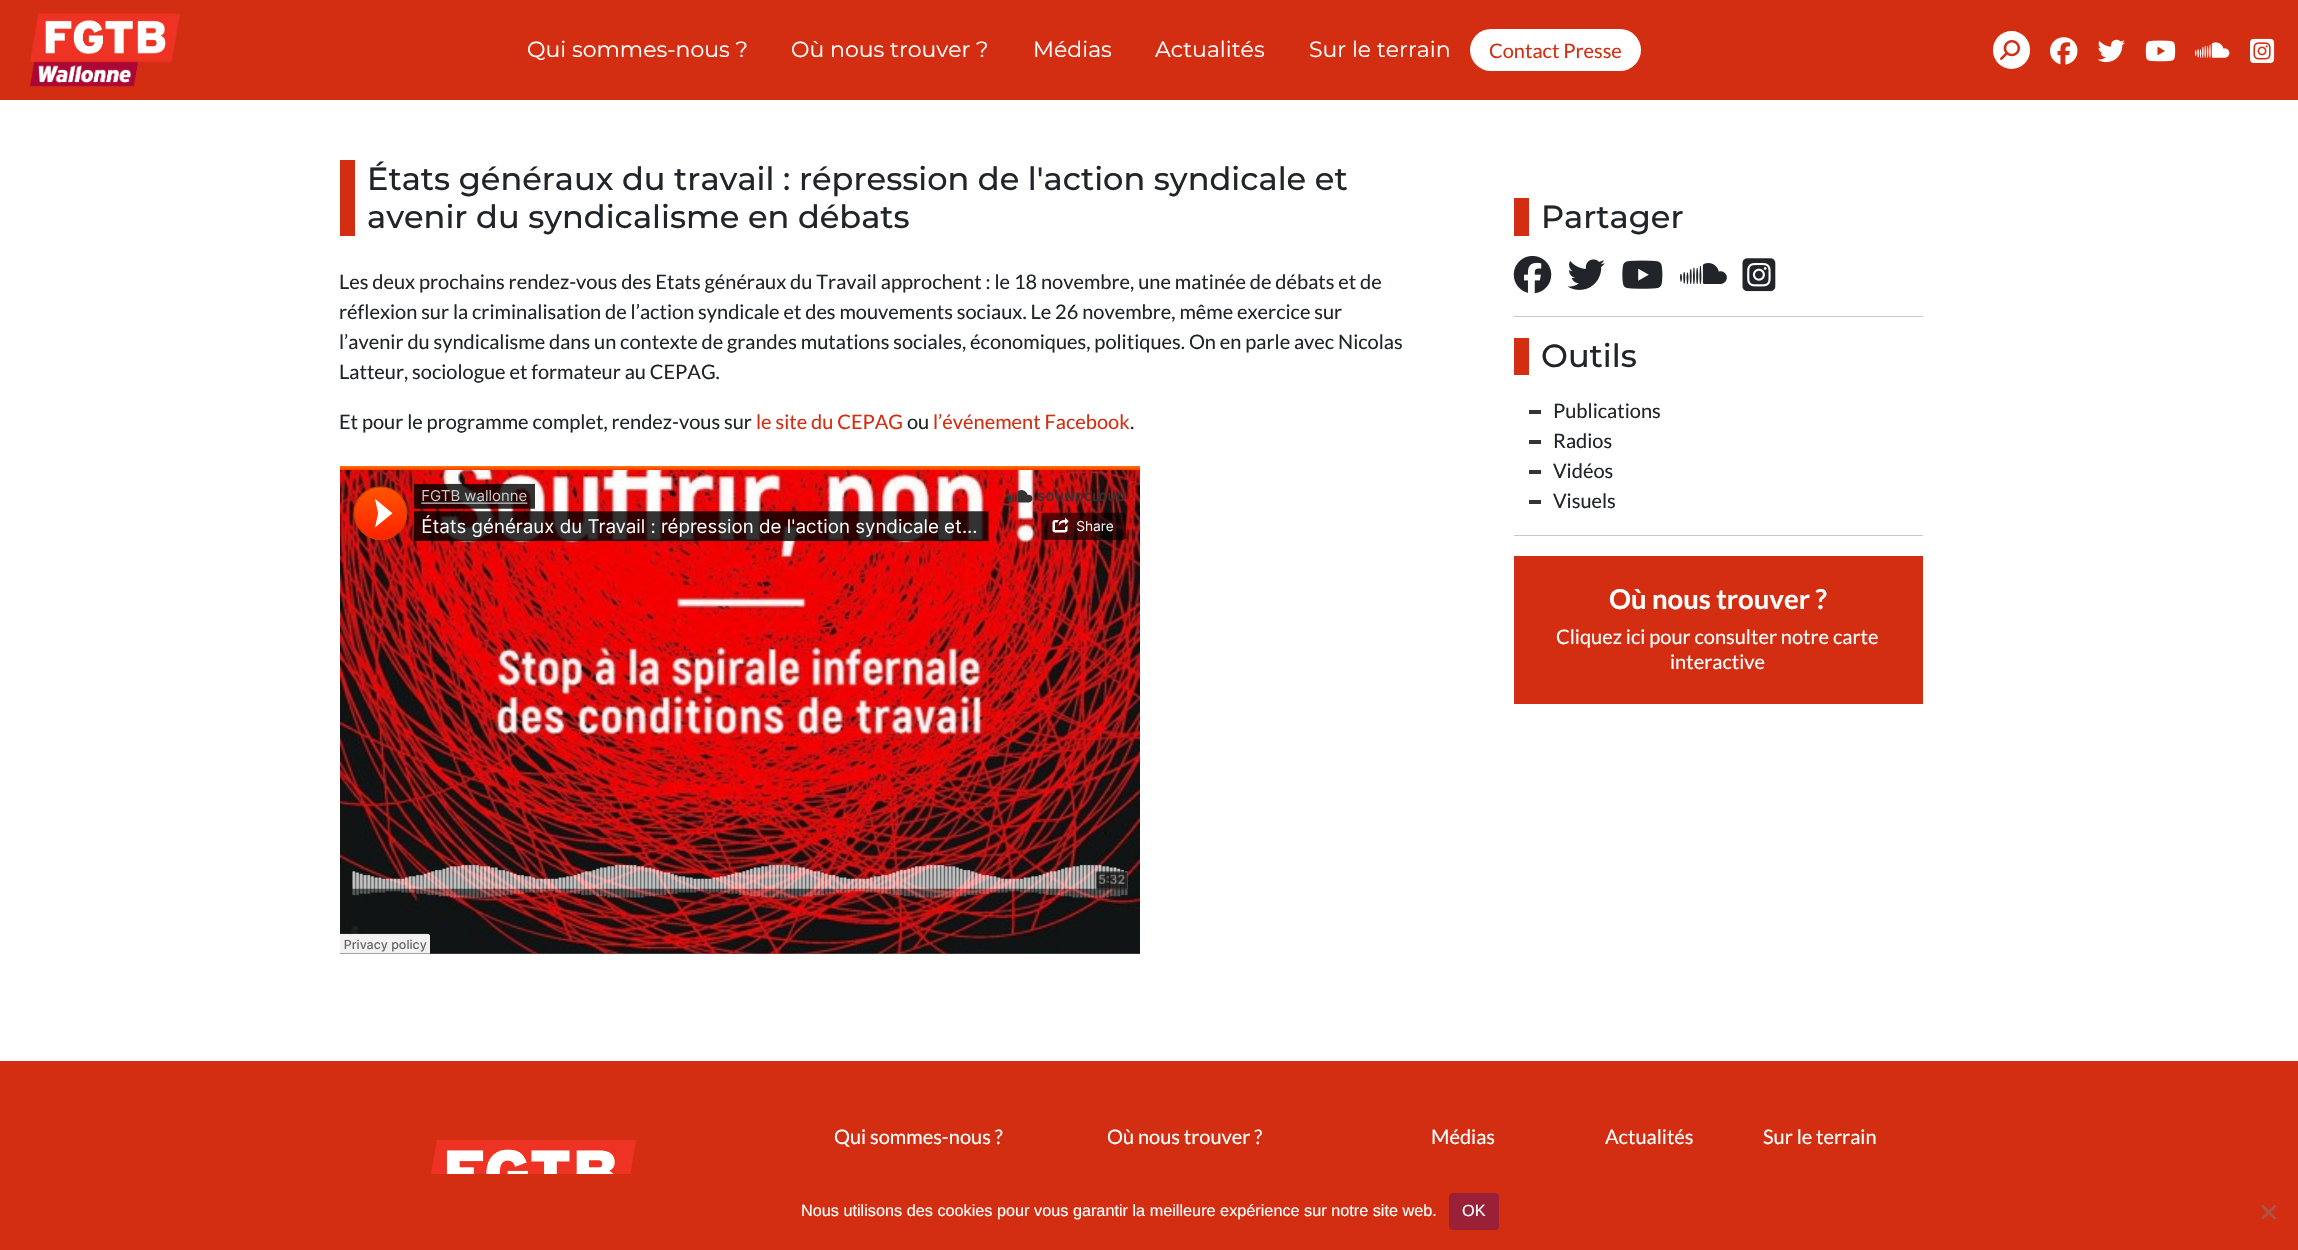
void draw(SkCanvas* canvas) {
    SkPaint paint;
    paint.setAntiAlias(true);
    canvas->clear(0xFFFFFFFF);
    paint.setColor(0xFFD42E12);
    canvas->drawRect(SkRect::MakeXYWH(0, 0, 2298, 100), paint);
    canvas->drawImageRect(SkImages::DeferredFromEncodedData(SkData::MakeFromFileName("img1.png")), SkRect::MakeXYWH(30, 13, 150, 74), SkSamplingOptions());
    SkFont font1(fontMgr->matchFamilyStyle("Montserrat", SkFontStyle::Normal()), 22);
    font1.setSubpixel(true);
    paint.setColor(0xFFFFFFFF);
    canvas->drawString("Qui sommes-nous ?", 527, 57, font1, paint);
    canvas->drawString("Où nous trouver ?", 791, 57, font1, paint);
    canvas->drawString("Médias", 1033, 57, font1, paint);
    canvas->drawString("Actualités", 1155, 57, font1, paint);
    canvas->drawString("Sur le terrain", 1309, 57, font1, paint);
    canvas->drawRoundRect(SkRect::MakeXYWH(1470, 29, 171, 42), 21, 21, paint);
    SkFont font2(fontMgr->matchFamilyStyle("Lato", SkFontStyle::Normal()), 20);
    font2.setSubpixel(true);
    paint.setColor(0xFFD42E12);
    canvas->drawString("Contact Presse", 1489, 58, font2, paint);
    paint.setColor(0xFFFFFFFF);
    canvas->drawRoundRect(SkRect::MakeXYWH(1993, 31, 37, 38), 18.5f, 18.5f, paint);
    canvas->drawImageRect(SkImages::DeferredFromEncodedData(SkData::MakeFromFileName("img2.png")), SkRect::MakeXYWH(2000, 40, 20, 20), SkSamplingOptions());
    canvas->drawImageRect(SkImages::DeferredFromEncodedData(SkData::MakeFromFileName("img3.png")), SkRect::MakeXYWH(2050, 37, 28, 28), SkSamplingOptions());
    canvas->drawImageRect(SkImages::DeferredFromEncodedData(SkData::MakeFromFileName("img4.png")), SkRect::MakeXYWH(2097, 39, 28, 24), SkSamplingOptions());
    canvas->drawImageRect(SkImages::DeferredFromEncodedData(SkData::MakeFromFileName("img5.png")), SkRect::MakeXYWH(2145, 40, 31, 22), SkSamplingOptions());
    canvas->drawImageRect(SkImages::DeferredFromEncodedData(SkData::MakeFromFileName("img6.png")), SkRect::MakeXYWH(2195, 42, 35, 16), SkSamplingOptions());
    canvas->drawImageRect(SkImages::DeferredFromEncodedData(SkData::MakeFromFileName("img7.png")), SkRect::MakeXYWH(2250, 38, 25, 25), SkSamplingOptions());
    paint.setColor(0xFFD42E12);
    canvas->drawRect(SkRect::MakeXYWH(340, 160, 15, 76), paint);
    SkFont font3(fontMgr->matchFamilyStyle("Montserrat", SkFontStyle(500, SkFontStyle::kNormal_Width, SkFontStyle::kUpright_Slant)), 32);
    font3.setSubpixel(true);
    paint.setColor(0xFF212529);
    canvas->drawString("États généraux du travail : répression de l'action syndicale et", 367, 190, font3, paint);
    canvas->drawString("avenir du syndicalisme en débats", 367, 228, font3, paint);
    canvas->drawString("Les deux prochains rendez-vous des Etats généraux du Travail approchent : le 18 novembre, une matinée de débats et de", 339, 289, font2, paint);
    canvas->drawString("réflexion sur la criminalisation de l’action syndicale et des mouvements sociaux. Le 26 novembre, même exercice sur", 339, 319, font2, paint);
    canvas->drawString("l’avenir du syndicalisme dans un contexte de grandes mutations sociales, économiques, politiques. On en parle avec Nicolas", 339, 349, font2, paint);
    canvas->drawString("Latteur, sociologue et formateur au CEPAG.", 339, 379, font2, paint);
    canvas->drawString("Et pour le programme complet, rendez-vous sur", 339, 429, font2, paint);
    paint.setColor(0xFFD42E12);
    canvas->drawString("le site du CEPAG", 756, 429, font2, paint);
    paint.setColor(0xFF212529);
    canvas->drawString("ou", 907, 429, font2, paint);
    paint.setColor(0xFFD42E12);
    canvas->drawString("l’événement Facebook", 933, 429, font2, paint);
    paint.setColor(0xFF212529);
    canvas->drawString(".", 1130, 429, font2, paint);
    canvas->drawImageRect(SkImages::DeferredFromEncodedData(SkData::MakeFromFileName("img8.png")), SkRect::MakeXYWH(340, 466, 800, 488), SkSamplingOptions());
    paint.setColor(0xFFD42E12);
    canvas->drawRect(SkRect::MakeXYWH(1514, 198, 15, 38), paint);
    paint.setColor(0xFF212529);
    canvas->drawString("Partager", 1541, 228, font3, paint);
    canvas->drawImageRect(SkImages::DeferredFromEncodedData(SkData::MakeFromFileName("img9.png")), SkRect::MakeXYWH(1513, 255, 39, 39), SkSamplingOptions());
    canvas->drawImageRect(SkImages::DeferredFromEncodedData(SkData::MakeFromFileName("img10.png")), SkRect::MakeXYWH(1567, 259, 38, 31), SkSamplingOptions());
    canvas->drawImageRect(SkImages::DeferredFromEncodedData(SkData::MakeFromFileName("img11.png")), SkRect::MakeXYWH(1622, 260, 41, 29), SkSamplingOptions());
    canvas->drawImageRect(SkImages::DeferredFromEncodedData(SkData::MakeFromFileName("img12.png")), SkRect::MakeXYWH(1680, 263, 47, 21), SkSamplingOptions());
    canvas->drawImageRect(SkImages::DeferredFromEncodedData(SkData::MakeFromFileName("img13.png")), SkRect::MakeXYWH(1742, 258, 34, 34), SkSamplingOptions());
    paint.setColor(0xFFC8C9CA);
    canvas->drawRect(SkRect::MakeXYWH(1514, 316, 409, 1), paint);
    paint.setColor(0xFFD42E12);
    canvas->drawRect(SkRect::MakeXYWH(1514, 338, 15, 37), paint);
    paint.setColor(0xFF212529);
    canvas->drawString("Outils", 1541, 367, font3, paint);
    paint.setColor(0xFF343434);
    canvas->drawRect(SkRect::MakeXYWH(1529, 410, 12, 4), paint);
    paint.setColor(0xFF212529);
    canvas->drawString("Publications", 1553, 418, font2, paint);
    paint.setColor(0xFF343434);
    canvas->drawRect(SkRect::MakeXYWH(1529, 440, 12, 4), paint);
    paint.setColor(0xFF212529);
    canvas->drawString("Radios", 1553, 448, font2, paint);
    paint.setColor(0xFF343434);
    canvas->drawRect(SkRect::MakeXYWH(1529, 470, 12, 4), paint);
    paint.setColor(0xFF212529);
    canvas->drawString("Vidéos", 1553, 478, font2, paint);
    paint.setColor(0xFF343434);
    canvas->drawRect(SkRect::MakeXYWH(1529, 500, 12, 4), paint);
    paint.setColor(0xFF212529);
    canvas->drawString("Visuels", 1553, 508, font2, paint);
    paint.setColor(0xFFC8C9CA);
    canvas->drawRect(SkRect::MakeXYWH(1514, 535, 409, 1), paint);
    paint.setColor(0xFFD42E12);
    canvas->drawRect(SkRect::MakeXYWH(1514, 556, 409, 148), paint);
    SkFont font4(fontMgr->matchFamilyStyle("Lato", SkFontStyle::Bold()), 27.5f);
    font4.setSubpixel(true);
    paint.setColor(0xFFFFFFFF);
    canvas->drawString("Où nous trouver ?", 1609, 609, font4, paint);
    canvas->drawString("Cliquez ici pour consulter notre carte", 1556, 644, font2, paint);
    canvas->drawString("interactive", 1670, 669, font2, paint);
    paint.setColor(0xFFD42E12);
    canvas->drawRect(SkRect::MakeXYWH(0, 1061, 2298, 189), paint);
    paint.setColor(0xFFFFFFFF);
    canvas->drawString("Qui sommes-nous ?", 834, 1144, font2, paint);
    canvas->drawString("Où nous trouver ?", 1107, 1144, font2, paint);
    canvas->drawString("Médias", 1431, 1144, font2, paint);
    canvas->drawString("Actualités", 1605, 1144, font2, paint);
    canvas->drawString("Sur le terrain", 1763, 1144, font2, paint);
    canvas->drawImageRect(SkImages::DeferredFromEncodedData(SkData::MakeFromFileName("img14.png")), SkRect::MakeXYWH(431, 1140, 206, 34), SkSamplingOptions());
    SkFont font5(fontMgr->matchFamilyStyle("Liberation Sans", SkFontStyle::Normal()), 16.25f);
    font5.setSubpixel(true);
    canvas->drawString("Nous utilisons des cookies pour vous garantir la meilleure expérience sur notre site web.", 801, 1216, font5, paint);
    paint.setColor(0xFF992036);
    canvas->drawRoundRect(SkRect::MakeXYWH(1449, 1193, 50, 37), 4, 4, paint);
    paint.setColor(0xFFFFFFFF);
    canvas->drawString("OK", 1462, 1216, font5, paint);
    paint.setColor(0xFFAA5749);
    canvas->drawPath(SkPathBuilder().moveTo(2274.5f, 1204.5f).lineTo(2276.5f, 1206.5f).lineTo(2263, 1219.5f).lineTo(2261, 1218).close().detach(), paint);
    canvas->drawPath(SkPathBuilder().moveTo(2261, 1206.5f).lineTo(2263, 1204.5f).lineTo(2276.5f, 1218).lineTo(2274.5f, 1219.5f).close().detach(), paint);
}
